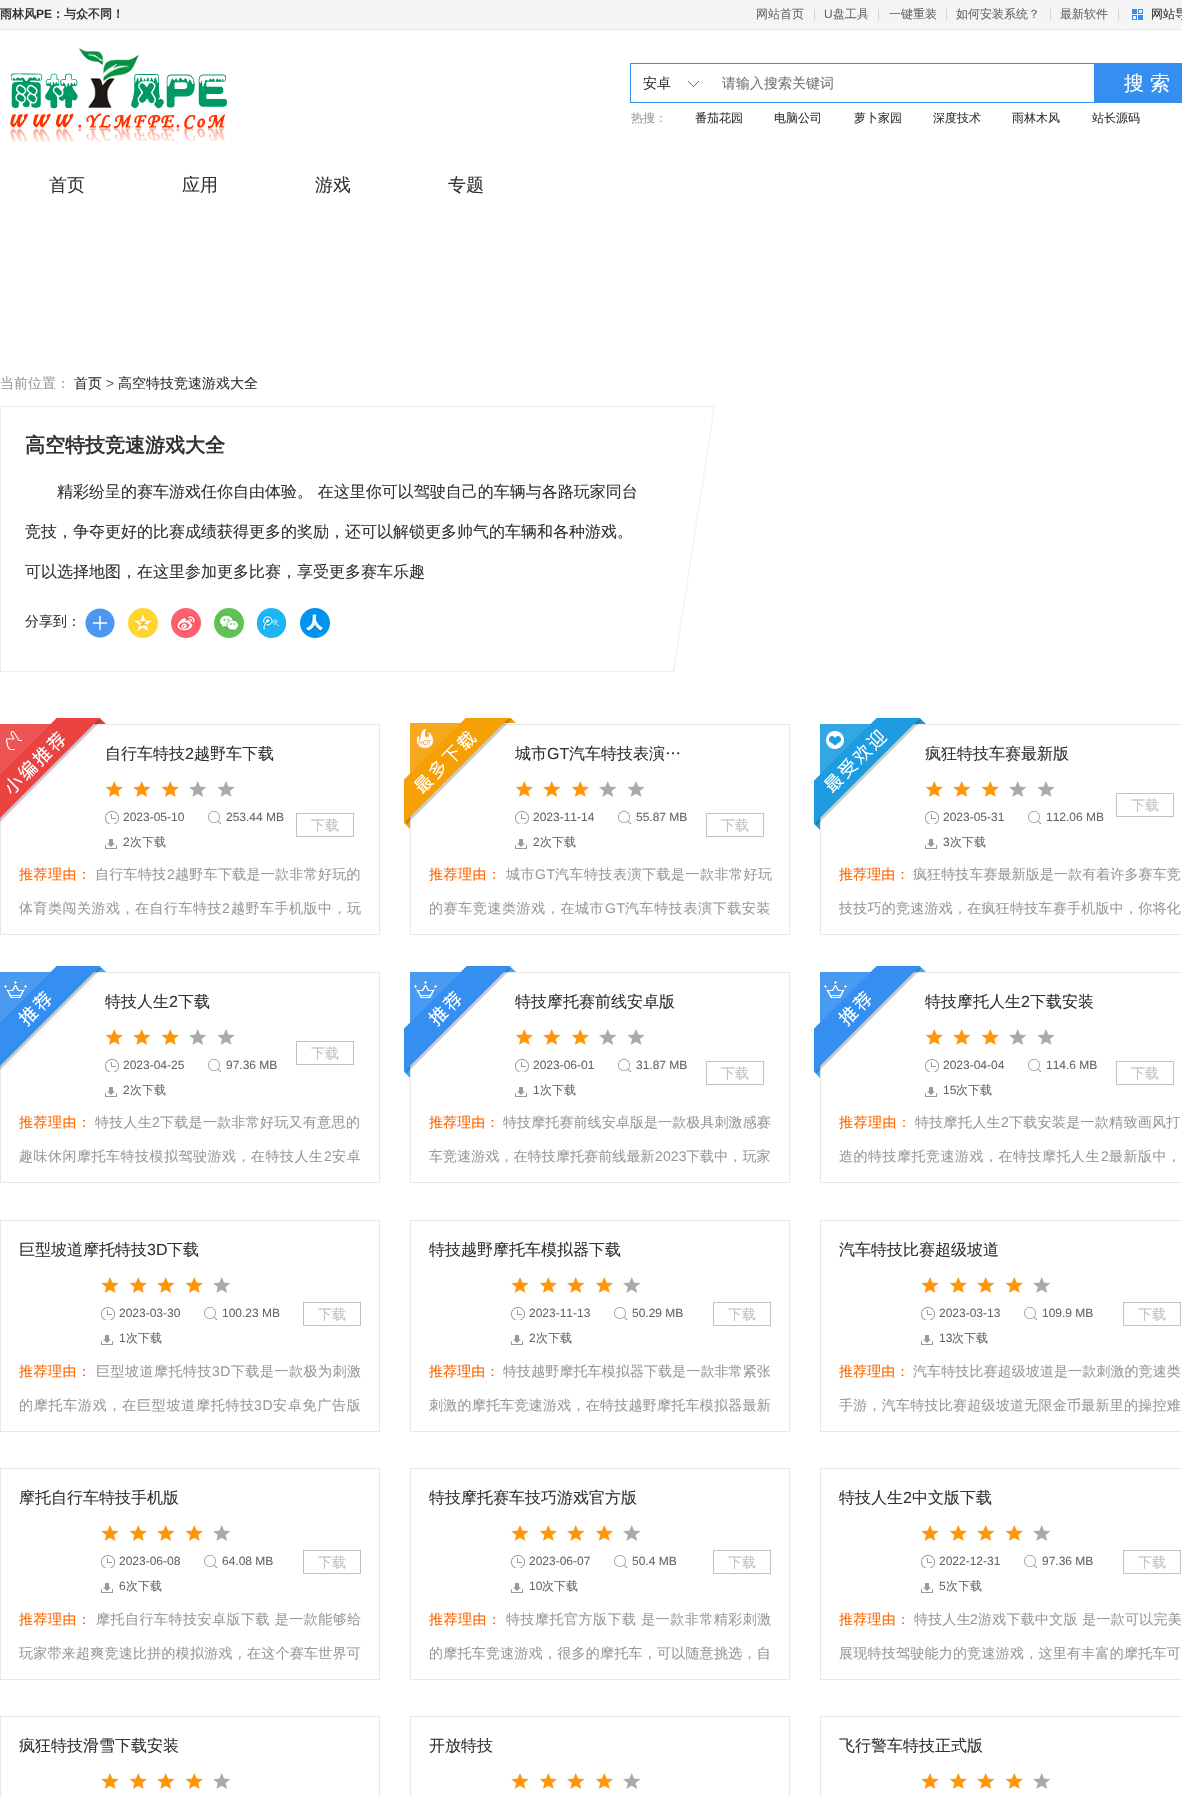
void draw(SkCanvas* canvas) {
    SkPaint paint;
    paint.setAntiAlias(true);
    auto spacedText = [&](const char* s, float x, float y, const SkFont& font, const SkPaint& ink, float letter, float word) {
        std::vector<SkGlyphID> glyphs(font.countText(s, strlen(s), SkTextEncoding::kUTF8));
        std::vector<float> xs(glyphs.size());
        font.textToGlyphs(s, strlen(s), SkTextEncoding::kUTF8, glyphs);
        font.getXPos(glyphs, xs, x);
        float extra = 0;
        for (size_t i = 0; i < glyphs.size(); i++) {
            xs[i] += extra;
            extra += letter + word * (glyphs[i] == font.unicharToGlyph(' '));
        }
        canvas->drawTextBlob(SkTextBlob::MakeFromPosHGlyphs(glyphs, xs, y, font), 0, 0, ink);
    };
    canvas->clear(0xFFFFFFFF);
    paint.setColor(0xFFF5F5F5);
    canvas->drawRect(SkRect::MakeXYWH(0, 0, 1182, 29), paint);
    paint.setColor(0xFFE8E8E8);
    canvas->drawRect(SkRect::MakeXYWH(0, 29, 1123, 1), paint);
    SkFont font1(fontMgr->matchFamilyStyle("WenQuanYi Zen Hei", SkFontStyle::Bold()), 12);
    font1.setSubpixel(true);
    paint.setColor(0xFF333333);
    canvas->drawString("雨林风", 0, 18, font1, paint);
    SkFont font2(fontMgr->matchFamilyStyle("Liberation Sans", SkFontStyle::Bold()), 12);
    font2.setSubpixel(true);
    canvas->drawString("PE", 36, 18, font2, paint);
    canvas->drawString("：与众不同！", 52, 18, font1, paint);
    SkFont font3(fontMgr->matchFamilyStyle("WenQuanYi Zen Hei", SkFontStyle(500, SkFontStyle::kNormal_Width, SkFontStyle::kUpright_Slant)), 12);
    font3.setSubpixel(true);
    paint.setColor(0xFF666666);
    canvas->drawString("网站首页", 756, 18, font3, paint);
    SkFont font4(fontMgr->matchFamilyStyle("Liberation Sans", SkFontStyle::Normal()), 12);
    font4.setSubpixel(true);
    paint.setColor(0xFFD5D5D5);
    canvas->drawString("|", 813, 18, font4, paint);
    paint.setColor(0xFF666666);
    canvas->drawString("U", 824, 18, font4, paint);
    canvas->drawString("盘工具", 833, 18, font3, paint);
    paint.setColor(0xFFD5D5D5);
    canvas->drawString("|", 877, 18, font4, paint);
    paint.setColor(0xFF666666);
    canvas->drawString("一键重装", 889, 18, font3, paint);
    paint.setColor(0xFFD5D5D5);
    canvas->drawString("|", 945, 18, font4, paint);
    paint.setColor(0xFF666666);
    canvas->drawString("如何安装系统？", 956, 18, font3, paint);
    paint.setColor(0xFFD5D5D5);
    canvas->drawString("|", 1049, 18, font4, paint);
    paint.setColor(0xFF666666);
    canvas->drawString("最新软件", 1060, 18, font3, paint);
    paint.setColor(0xFFD5D5D5);
    canvas->drawString("|", 1117, 18, font4, paint);
    canvas->drawImageRect(SkImages::DeferredFromEncodedData(SkData::MakeFromFileName("img1.png")), SkRect::MakeXYWH(1132, 9, 11, 11), SkSamplingOptions());
    paint.setColor(0xFFE6E6E6);
    canvas->drawRect(SkRect::MakeXYWH(1123, 29, 59, 1), paint);
    paint.setColor(0xFFF5F5F5);
    canvas->drawRect(SkRect::MakeXYWH(1123, 29, 1, 1), paint);
    paint.setColor(0xFF333333);
    canvas->drawString("网站导", 1151, 18, font3, paint);
    canvas->drawImageRect(SkImages::DeferredFromEncodedData(SkData::MakeFromFileName("img2.png")), SkRect::MakeXYWH(10, 48, 217, 94), SkSamplingOptions());
    paint.setStyle(SkPaint::kStroke_Style);
    paint.setStrokeWidth(1);
    paint.setColor(0xFF358FF0);
    canvas->drawRect(SkRect::MakeXYWH(630.5f, 63.5f, 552, 39), paint);
    canvas->drawImageRect(SkImages::DeferredFromEncodedData(SkData::MakeFromFileName("img3.png")), SkRect::MakeXYWH(688, 81, 11, 6), SkSamplingOptions());
    SkFont font5(fontMgr->matchFamilyStyle("WenQuanYi Zen Hei", SkFontStyle(500, SkFontStyle::kNormal_Width, SkFontStyle::kUpright_Slant)), 14);
    font5.setSubpixel(true);
    paint.setStyle(SkPaint::kFill_Style);
    paint.setColor(0xFF333333);
    canvas->drawString("安卓", 643, 88, font5, paint);
    paint.setColor(0xFF757575);
    canvas->drawString("请输入搜索关键词", 722, 88, font5, paint);
    paint.setColor(0xFF358FF0);
    canvas->drawRect(SkRect::MakeXYWH(1094, 64, 88, 38), paint);
    SkFont font6(fontMgr->matchFamilyStyle("WenQuanYi Zen Hei", SkFontStyle(500, SkFontStyle::kNormal_Width, SkFontStyle::kUpright_Slant)), 20);
    font6.setSubpixel(true);
    paint.setColor(0xFFFFFFFF);
    canvas->drawString("搜 索", 1124, 90, font6, paint);
    paint.setColor(0xFF999999);
    canvas->drawString("热搜：", 631, 122, font3, paint);
    paint.setColor(0xFF333333);
    canvas->drawString("番茄花园", 695, 122, font3, paint);
    canvas->drawString("电脑公司", 774, 122, font3, paint);
    canvas->drawString("萝卜家园", 854, 122, font3, paint);
    canvas->drawString("深度技术", 933, 122, font3, paint);
    canvas->drawString("雨林木风", 1012, 122, font3, paint);
    canvas->drawString("站长源码", 1092, 122, font3, paint);
    SkFont font7(fontMgr->matchFamilyStyle("WenQuanYi Zen Hei", SkFontStyle(500, SkFontStyle::kNormal_Width, SkFontStyle::kUpright_Slant)), 18);
    font7.setSubpixel(true);
    canvas->drawString("首页", 49, 191, font7, paint);
    canvas->drawString("应用", 182, 191, font7, paint);
    canvas->drawString("游戏", 315, 191, font7, paint);
    canvas->drawString("专题", 448, 191, font7, paint);
    paint.setColor(0xFF999999);
    canvas->drawString("当前位置：", 0, 388, font5, paint);
    paint.setColor(0xFF333333);
    canvas->drawString("首页", 74, 388, font5, paint);
    SkFont font8(fontMgr->matchFamilyStyle("Liberation Sans", SkFontStyle::Normal()), 14);
    font8.setSubpixel(true);
    paint.setColor(0xFF666666);
    canvas->drawString(">", 106, 388, font8, paint);
    paint.setColor(0xFF333333);
    canvas->drawString("高空特技竞速游戏大全", 118, 388, font5, paint);
    paint.setColor(0xFFEDEDED);
    canvas->drawRect(SkRect::MakeXYWH(0, 406, 715, 1), paint);
    canvas->drawRect(SkRect::MakeXYWH(0, 406, 1, 266), paint);
    canvas->drawRect(SkRect::MakeXYWH(1, 671, 672, 1), paint);
    SkFont font9(fontMgr->matchFamilyStyle("WenQuanYi Zen Hei", SkFontStyle::Bold()), 20);
    font9.setSubpixel(true);
    paint.setColor(0xFF333333);
    canvas->drawString("高空特技竞速游戏大全", 25, 452, font9, paint);
    SkFont font10(fontMgr->matchFamilyStyle("WenQuanYi Zen Hei", SkFontStyle(500, SkFontStyle::kNormal_Width, SkFontStyle::kUpright_Slant)), 16);
    font10.setSubpixel(true);
    canvas->drawString("精彩纷呈的赛车游戏任你自由体验。 在这里你可以驾驶自己的车辆与各路玩家同台", 57, 497, font10, paint);
    canvas->drawString("竞技，争夺更好的比赛成绩获得更多的奖励，还可以解锁更多帅气的车辆和各种游戏。", 25, 537, font10, paint);
    canvas->drawString("可以选择地图，在这里参加更多比赛，享受更多赛车乐趣", 25, 577, font10, paint);
    canvas->drawString("分享到：", 25, 626, font5, paint);
    canvas->drawImageRect(SkImages::DeferredFromEncodedData(SkData::MakeFromFileName("img4.png")), SkRect::MakeXYWH(85, 608, 30, 30), SkSamplingOptions());
    canvas->drawImageRect(SkImages::DeferredFromEncodedData(SkData::MakeFromFileName("img5.png")), SkRect::MakeXYWH(128, 608, 30, 30), SkSamplingOptions());
    canvas->drawImageRect(SkImages::DeferredFromEncodedData(SkData::MakeFromFileName("img6.png")), SkRect::MakeXYWH(171, 608, 30, 30), SkSamplingOptions());
    canvas->drawImageRect(SkImages::DeferredFromEncodedData(SkData::MakeFromFileName("img7.png")), SkRect::MakeXYWH(214, 608, 30, 30), SkSamplingOptions());
    canvas->drawImageRect(SkImages::DeferredFromEncodedData(SkData::MakeFromFileName("img8.png")), SkRect::MakeXYWH(257, 608, 29, 30), SkSamplingOptions());
    canvas->drawImageRect(SkImages::DeferredFromEncodedData(SkData::MakeFromFileName("img9.png")), SkRect::MakeXYWH(300, 608, 30, 30), SkSamplingOptions());
    canvas->drawImageRect(SkImages::DeferredFromEncodedData(SkData::MakeFromFileName("img10.png")), SkRect::MakeXYWH(673, 407, 42, 265), SkSamplingOptions());
    paint.setStyle(SkPaint::kStroke_Style);
    paint.setColor(0xFFE8E8E8);
    canvas->drawRect(SkRect::MakeXYWH(0.5f, 724.5f, 379, 210), paint);
    canvas->drawImageRect(SkImages::DeferredFromEncodedData(SkData::MakeFromFileName("img12.png")), SkRect::MakeXYWH(105, 781, 130, 16), SkSamplingOptions());
    canvas->drawImageRect(SkImages::DeferredFromEncodedData(SkData::MakeFromFileName("img13.png")), SkRect::MakeXYWH(105, 811, 14, 13), SkSamplingOptions());
    canvas->drawImageRect(SkImages::DeferredFromEncodedData(SkData::MakeFromFileName("img11.png")), SkRect::MakeXYWH(0, 718, 106, 104), SkSamplingOptions());
    paint.setStyle(SkPaint::kFill_Style);
    paint.setColor(0xFF333333);
    canvas->drawString("自行车特技", 105, 759, font10, paint);
    SkFont font11(fontMgr->matchFamilyStyle("Liberation Sans", SkFontStyle::Normal()), 16);
    font11.setSubpixel(true);
    canvas->drawString("2", 185, 759, font11, paint);
    canvas->drawString("越野车下载", 194, 759, font10, paint);
    paint.setColor(0xFF666666);
    canvas->drawString("2023-05-10", 123, 821, font4, paint);
    canvas->drawImageRect(SkImages::DeferredFromEncodedData(SkData::MakeFromFileName("img14.png")), SkRect::MakeXYWH(208, 811, 14, 13), SkSamplingOptions());
    canvas->drawString("253.44 MB", 226, 821, font4, paint);
    paint.setStyle(SkPaint::kStroke_Style);
    paint.setColor(0xFFC2C2C2);
    canvas->drawRect(SkRect::MakeXYWH(296.5f, 813.5f, 57, 23), paint);
    paint.setStyle(SkPaint::kFill_Style);
    canvas->drawString("下载", 311, 830, font5, paint);
    canvas->drawImageRect(SkImages::DeferredFromEncodedData(SkData::MakeFromFileName("img15.png")), SkRect::MakeXYWH(105, 839, 12, 10), SkSamplingOptions());
    paint.setColor(0xFF666666);
    canvas->drawString("2", 123, 846, font4, paint);
    canvas->drawString("次下载", 130, 846, font3, paint);
    paint.setColor(0xFFFF6600);
    spacedText("推荐理由：", 19, 879, font5, paint, 0.5f, 0);
    paint.setColor(0xFF999999);
    spacedText("自行车特技", 95, 879, font5, paint, 0.3f, 0);
    spacedText("2", 167, 879, font8, paint, 0.3f, 0);
    spacedText("越野车下载是一款非常好玩的", 175, 879, font5, paint, 0.3f, 0);
    spacedText("体育类闯关游戏，在自行车特技", 19, 913, font5, paint, 0.5f, 0);
    spacedText("2", 222, 913, font8, paint, 0.5f, 0);
    spacedText("越野车手机版中，玩", 231, 913, font5, paint, 0.5f, 0);
    paint.setStyle(SkPaint::kStroke_Style);
    paint.setColor(0xFFE8E8E8);
    canvas->drawRect(SkRect::MakeXYWH(410.5f, 724.5f, 379, 210), paint);
    paint.setStyle(SkPaint::kFill_Style);
    paint.setColor(0xFF333333);
    canvas->drawString("城市", 515, 759, font10, paint);
    canvas->drawImageRect(SkImages::DeferredFromEncodedData(SkData::MakeFromFileName("img12.png")), SkRect::MakeXYWH(515, 781, 130, 16), SkSamplingOptions());
    canvas->drawImageRect(SkImages::DeferredFromEncodedData(SkData::MakeFromFileName("img13.png")), SkRect::MakeXYWH(515, 811, 14, 13), SkSamplingOptions());
    canvas->drawImageRect(SkImages::DeferredFromEncodedData(SkData::MakeFromFileName("img16.png")), SkRect::MakeXYWH(404, 718, 112, 111), SkSamplingOptions());
    canvas->drawString("GT", 547, 759, font11, paint);
    canvas->drawString("汽车特技表演…", 569, 759, font10, paint);
    paint.setColor(0xFF666666);
    canvas->drawString("2023-11-14", 533, 821, font4, paint);
    canvas->drawImageRect(SkImages::DeferredFromEncodedData(SkData::MakeFromFileName("img14.png")), SkRect::MakeXYWH(618, 811, 14, 13), SkSamplingOptions());
    canvas->drawString("55.87 MB", 636, 821, font4, paint);
    paint.setStyle(SkPaint::kStroke_Style);
    paint.setColor(0xFFC2C2C2);
    canvas->drawRect(SkRect::MakeXYWH(706.5f, 813.5f, 57, 23), paint);
    paint.setStyle(SkPaint::kFill_Style);
    canvas->drawString("下载", 721, 830, font5, paint);
    canvas->drawImageRect(SkImages::DeferredFromEncodedData(SkData::MakeFromFileName("img15.png")), SkRect::MakeXYWH(515, 839, 12, 10), SkSamplingOptions());
    paint.setColor(0xFF666666);
    canvas->drawString("2", 533, 846, font4, paint);
    canvas->drawString("次下载", 540, 846, font3, paint);
    paint.setColor(0xFFFF6600);
    spacedText("推荐理由：", 429, 879, font5, paint, 0.5f, 0);
    paint.setColor(0xFF999999);
    spacedText("城市", 506, 879, font5, paint, 0.5f, 0);
    spacedText("GT", 535, 879, font8, paint, 0.5f, 0);
    spacedText("汽车特技表演下载是一款非常好玩", 555, 879, font5, paint, 0.5f, 0);
    spacedText("的赛车竞速类游戏，在城市", 429, 913, font5, paint, 0.6f, 0);
    spacedText("GT", 605, 913, font8, paint, 0.6f, 0);
    spacedText("汽车特技表演下载安装", 625, 913, font5, paint, 0.6f, 0);
    paint.setStyle(SkPaint::kStroke_Style);
    paint.setColor(0xFFE8E8E8);
    canvas->drawRect(SkRect::MakeXYWH(820.5f, 724.5f, 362, 210), paint);
    paint.setStyle(SkPaint::kFill_Style);
    paint.setColor(0xFF333333);
    canvas->drawString("疯狂特技车赛最新版", 925, 759, font10, paint);
    canvas->drawImageRect(SkImages::DeferredFromEncodedData(SkData::MakeFromFileName("img12.png")), SkRect::MakeXYWH(925, 781, 130, 16), SkSamplingOptions());
    canvas->drawImageRect(SkImages::DeferredFromEncodedData(SkData::MakeFromFileName("img13.png")), SkRect::MakeXYWH(925, 811, 14, 13), SkSamplingOptions());
    canvas->drawImageRect(SkImages::DeferredFromEncodedData(SkData::MakeFromFileName("img17.png")), SkRect::MakeXYWH(814, 718, 112, 112), SkSamplingOptions());
    paint.setStyle(SkPaint::kStroke_Style);
    paint.setColor(0xFFC2C2C2);
    canvas->drawRect(SkRect::MakeXYWH(1116.5f, 793.5f, 57, 23), paint);
    paint.setStyle(SkPaint::kFill_Style);
    canvas->drawString("下载", 1131, 810, font5, paint);
    paint.setColor(0xFF666666);
    canvas->drawString("2023-05-31", 943, 821, font4, paint);
    canvas->drawImageRect(SkImages::DeferredFromEncodedData(SkData::MakeFromFileName("img14.png")), SkRect::MakeXYWH(1028, 811, 14, 13), SkSamplingOptions());
    canvas->drawString("112.06 MB", 1046, 821, font4, paint);
    canvas->drawImageRect(SkImages::DeferredFromEncodedData(SkData::MakeFromFileName("img15.png")), SkRect::MakeXYWH(925, 839, 12, 10), SkSamplingOptions());
    canvas->drawString("3", 943, 846, font4, paint);
    canvas->drawString("次下载", 950, 846, font3, paint);
    paint.setColor(0xFFFF6600);
    spacedText("推荐理由：", 839, 879, font5, paint, 0.1f, 0);
    paint.setColor(0xFF999999);
    spacedText("疯狂特技车赛最新版是一款有着许多赛车竞", 913, 879, font5, paint, 0.1f, 0);
    spacedText("技技巧的竞速游戏，在疯狂特技车赛手机版中，你将化", 839, 913, font5, paint, 0.25f, 0);
    paint.setStyle(SkPaint::kStroke_Style);
    paint.setColor(0xFFE8E8E8);
    canvas->drawRect(SkRect::MakeXYWH(0.5f, 972.5f, 379, 210), paint);
    paint.setStyle(SkPaint::kFill_Style);
    paint.setColor(0xFF333333);
    canvas->drawString("特技人生", 105, 1007, font10, paint);
    canvas->drawImageRect(SkImages::DeferredFromEncodedData(SkData::MakeFromFileName("img12.png")), SkRect::MakeXYWH(105, 1029, 130, 16), SkSamplingOptions());
    canvas->drawImageRect(SkImages::DeferredFromEncodedData(SkData::MakeFromFileName("img13.png")), SkRect::MakeXYWH(105, 1059, 14, 13), SkSamplingOptions());
    canvas->drawImageRect(SkImages::DeferredFromEncodedData(SkData::MakeFromFileName("img18.png")), SkRect::MakeXYWH(0, 966, 106, 104), SkSamplingOptions());
    canvas->drawString("2", 169, 1007, font11, paint);
    canvas->drawString("下载", 178, 1007, font10, paint);
    paint.setStyle(SkPaint::kStroke_Style);
    paint.setColor(0xFFC2C2C2);
    canvas->drawRect(SkRect::MakeXYWH(296.5f, 1041.5f, 57, 23), paint);
    paint.setStyle(SkPaint::kFill_Style);
    canvas->drawString("下载", 311, 1058, font5, paint);
    paint.setColor(0xFF666666);
    canvas->drawString("2023-04-25", 123, 1069, font4, paint);
    canvas->drawImageRect(SkImages::DeferredFromEncodedData(SkData::MakeFromFileName("img14.png")), SkRect::MakeXYWH(208, 1059, 14, 13), SkSamplingOptions());
    canvas->drawString("97.36 MB", 226, 1069, font4, paint);
    canvas->drawImageRect(SkImages::DeferredFromEncodedData(SkData::MakeFromFileName("img15.png")), SkRect::MakeXYWH(105, 1087, 12, 10), SkSamplingOptions());
    canvas->drawString("2", 123, 1094, font4, paint);
    canvas->drawString("次下载", 130, 1094, font3, paint);
    paint.setColor(0xFFFF6600);
    spacedText("推荐理由：", 19, 1127, font5, paint, 0.5f, 0);
    paint.setColor(0xFF999999);
    spacedText("特技人生", 95, 1127, font5, paint, 0.3f, 0);
    spacedText("2", 152, 1127, font8, paint, 0.3f, 0);
    spacedText("下载是一款非常好玩又有意思的", 160, 1127, font5, paint, 0.3f, 0);
    spacedText("趣味休闲摩托车特技模拟驾驶游戏，在特技人生", 19, 1161, font5, paint, 0.5f, 0);
    spacedText("2", 324, 1161, font8, paint, 0.5f, 0);
    spacedText("安卓", 332, 1161, font5, paint, 0.5f, 0);
    paint.setStyle(SkPaint::kStroke_Style);
    paint.setColor(0xFFE8E8E8);
    canvas->drawRect(SkRect::MakeXYWH(410.5f, 972.5f, 379, 210), paint);
    paint.setStyle(SkPaint::kFill_Style);
    paint.setColor(0xFF333333);
    canvas->drawString("特技摩托赛前线安卓版", 515, 1007, font10, paint);
    canvas->drawImageRect(SkImages::DeferredFromEncodedData(SkData::MakeFromFileName("img12.png")), SkRect::MakeXYWH(515, 1029, 130, 16), SkSamplingOptions());
    canvas->drawImageRect(SkImages::DeferredFromEncodedData(SkData::MakeFromFileName("img13.png")), SkRect::MakeXYWH(515, 1059, 14, 13), SkSamplingOptions());
    canvas->drawImageRect(SkImages::DeferredFromEncodedData(SkData::MakeFromFileName("img19.png")), SkRect::MakeXYWH(404, 966, 112, 112), SkSamplingOptions());
    paint.setColor(0xFF666666);
    canvas->drawString("2023-06-01", 533, 1069, font4, paint);
    canvas->drawImageRect(SkImages::DeferredFromEncodedData(SkData::MakeFromFileName("img14.png")), SkRect::MakeXYWH(618, 1059, 14, 13), SkSamplingOptions());
    canvas->drawString("31.87 MB", 636, 1069, font4, paint);
    paint.setStyle(SkPaint::kStroke_Style);
    paint.setColor(0xFFC2C2C2);
    canvas->drawRect(SkRect::MakeXYWH(706.5f, 1061.5f, 57, 23), paint);
    paint.setStyle(SkPaint::kFill_Style);
    canvas->drawString("下载", 721, 1078, font5, paint);
    canvas->drawImageRect(SkImages::DeferredFromEncodedData(SkData::MakeFromFileName("img15.png")), SkRect::MakeXYWH(515, 1087, 12, 10), SkSamplingOptions());
    paint.setColor(0xFF666666);
    canvas->drawString("1", 533, 1094, font4, paint);
    canvas->drawString("次下载", 540, 1094, font3, paint);
    paint.setColor(0xFFFF6600);
    spacedText("推荐理由：", 429, 1127, font5, paint, 0.1f, 0);
    paint.setColor(0xFF999999);
    spacedText("特技摩托赛前线安卓版是一款极具刺激感赛", 503, 1127, font5, paint, 0.1f, 0);
    spacedText("车竞速游戏，在特技摩托赛前线最新", 429, 1161, font5, paint, 0.1f, 0);
    spacedText("2023", 655, 1161, font8, paint, 0.1f, 0);
    spacedText("下载中，玩家", 686, 1161, font5, paint, 0.1f, 0);
    paint.setStyle(SkPaint::kStroke_Style);
    paint.setColor(0xFFE8E8E8);
    canvas->drawRect(SkRect::MakeXYWH(820.5f, 972.5f, 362, 210), paint);
    paint.setStyle(SkPaint::kFill_Style);
    paint.setColor(0xFF333333);
    canvas->drawString("特技摩托人生", 925, 1007, font10, paint);
    canvas->drawImageRect(SkImages::DeferredFromEncodedData(SkData::MakeFromFileName("img12.png")), SkRect::MakeXYWH(925, 1029, 130, 16), SkSamplingOptions());
    canvas->drawImageRect(SkImages::DeferredFromEncodedData(SkData::MakeFromFileName("img13.png")), SkRect::MakeXYWH(925, 1059, 14, 13), SkSamplingOptions());
    canvas->drawImageRect(SkImages::DeferredFromEncodedData(SkData::MakeFromFileName("img19.png")), SkRect::MakeXYWH(814, 966, 112, 112), SkSamplingOptions());
    canvas->drawString("2", 1021, 1007, font11, paint);
    canvas->drawString("下载安装", 1030, 1007, font10, paint);
    paint.setColor(0xFF666666);
    canvas->drawString("2023-04-04", 943, 1069, font4, paint);
    canvas->drawImageRect(SkImages::DeferredFromEncodedData(SkData::MakeFromFileName("img14.png")), SkRect::MakeXYWH(1028, 1059, 14, 13), SkSamplingOptions());
    canvas->drawString("114.6 MB", 1046, 1069, font4, paint);
    paint.setStyle(SkPaint::kStroke_Style);
    paint.setColor(0xFFC2C2C2);
    canvas->drawRect(SkRect::MakeXYWH(1116.5f, 1061.5f, 57, 23), paint);
    paint.setStyle(SkPaint::kFill_Style);
    canvas->drawString("下载", 1131, 1078, font5, paint);
    canvas->drawImageRect(SkImages::DeferredFromEncodedData(SkData::MakeFromFileName("img15.png")), SkRect::MakeXYWH(925, 1087, 12, 10), SkSamplingOptions());
    paint.setColor(0xFF666666);
    canvas->drawString("15", 943, 1094, font4, paint);
    canvas->drawString("次下载", 956, 1094, font3, paint);
    paint.setColor(0xFFFF6600);
    spacedText("推荐理由：", 839, 1127, font5, paint, 0.5f, 0);
    paint.setColor(0xFF999999);
    spacedText("特技摩托人生", 915, 1127, font5, paint, 0.3f, 0);
    spacedText("2", 1001, 1127, font8, paint, 0.3f, 0);
    spacedText("下载安装是一款精致画风打", 1009, 1127, font5, paint, 0.3f, 0);
    spacedText("造的特技摩托竞速游戏，在特技摩托人生", 839, 1161, font5, paint, 0.5f, 0);
    spacedText("2", 1101, 1161, font8, paint, 0.5f, 0);
    spacedText("最新版中，", 1109, 1161, font5, paint, 0.5f, 0);
    paint.setStyle(SkPaint::kStroke_Style);
    paint.setColor(0xFFE8E8E8);
    canvas->drawRect(SkRect::MakeXYWH(0.5f, 1220.5f, 379, 211), paint);
    paint.setStyle(SkPaint::kFill_Style);
    paint.setColor(0xFF333333);
    canvas->drawString("巨型坡道摩托特技", 19, 1255, font10, paint);
    canvas->drawString("3D", 147, 1255, font11, paint);
    canvas->drawString("下载", 167, 1255, font10, paint);
    canvas->drawImageRect(SkImages::DeferredFromEncodedData(SkData::MakeFromFileName("img20.png")), SkRect::MakeXYWH(101, 1277, 130, 16), SkSamplingOptions());
    canvas->drawImageRect(SkImages::DeferredFromEncodedData(SkData::MakeFromFileName("img13.png")), SkRect::MakeXYWH(101, 1307, 14, 13), SkSamplingOptions());
    paint.setColor(0xFF666666);
    canvas->drawString("2023-03-30", 119, 1317, font4, paint);
    canvas->drawImageRect(SkImages::DeferredFromEncodedData(SkData::MakeFromFileName("img14.png")), SkRect::MakeXYWH(204, 1307, 14, 13), SkSamplingOptions());
    canvas->drawString("100.23 MB", 222, 1317, font4, paint);
    canvas->drawImageRect(SkImages::DeferredFromEncodedData(SkData::MakeFromFileName("img15.png")), SkRect::MakeXYWH(101, 1335, 12, 10), SkSamplingOptions());
    canvas->drawString("1", 119, 1342, font4, paint);
    canvas->drawString("次下载", 126, 1342, font3, paint);
    paint.setStyle(SkPaint::kStroke_Style);
    paint.setColor(0xFFC2C2C2);
    canvas->drawRect(SkRect::MakeXYWH(303.5f, 1302.5f, 57, 23), paint);
    paint.setStyle(SkPaint::kFill_Style);
    canvas->drawString("下载", 318, 1319, font5, paint);
    paint.setColor(0xFFFF6600);
    spacedText("推荐理由：", 19, 1376, font5, paint, 0.5f, 0);
    paint.setColor(0xFF999999);
    spacedText("巨型坡道摩托特技", 96, 1376, font5, paint, 0.5f, 0);
    spacedText("3D", 212, 1376, font8, paint, 0.5f, 0);
    spacedText("下载是一款极为刺激", 231, 1376, font5, paint, 0.5f, 0);
    spacedText("的摩托车游戏，在巨型坡道摩托特技", 19, 1410, font5, paint, 0.75f, 0);
    spacedText("3D", 254, 1410, font8, paint, 0.75f, 0);
    spacedText("安卓免广告版", 273, 1410, font5, paint, 0.75f, 0);
    paint.setStyle(SkPaint::kStroke_Style);
    paint.setColor(0xFFE8E8E8);
    canvas->drawRect(SkRect::MakeXYWH(410.5f, 1220.5f, 379, 211), paint);
    paint.setStyle(SkPaint::kFill_Style);
    paint.setColor(0xFF333333);
    canvas->drawString("特技越野摩托车模拟器下载", 429, 1255, font10, paint);
    canvas->drawImageRect(SkImages::DeferredFromEncodedData(SkData::MakeFromFileName("img20.png")), SkRect::MakeXYWH(511, 1277, 130, 16), SkSamplingOptions());
    canvas->drawImageRect(SkImages::DeferredFromEncodedData(SkData::MakeFromFileName("img13.png")), SkRect::MakeXYWH(511, 1307, 14, 13), SkSamplingOptions());
    paint.setColor(0xFF666666);
    canvas->drawString("2023-11-13", 529, 1317, font4, paint);
    canvas->drawImageRect(SkImages::DeferredFromEncodedData(SkData::MakeFromFileName("img14.png")), SkRect::MakeXYWH(614, 1307, 14, 13), SkSamplingOptions());
    canvas->drawString("50.29 MB", 632, 1317, font4, paint);
    canvas->drawImageRect(SkImages::DeferredFromEncodedData(SkData::MakeFromFileName("img15.png")), SkRect::MakeXYWH(511, 1335, 12, 10), SkSamplingOptions());
    canvas->drawString("2", 529, 1342, font4, paint);
    canvas->drawString("次下载", 536, 1342, font3, paint);
    paint.setStyle(SkPaint::kStroke_Style);
    paint.setColor(0xFFC2C2C2);
    canvas->drawRect(SkRect::MakeXYWH(713.5f, 1302.5f, 57, 23), paint);
    paint.setStyle(SkPaint::kFill_Style);
    canvas->drawString("下载", 728, 1319, font5, paint);
    paint.setColor(0xFFFF6600);
    spacedText("推荐理由：", 429, 1376, font5, paint, 0.1f, 0);
    paint.setColor(0xFF999999);
    spacedText("特技越野摩托车模拟器下载是一款非常紧张", 503, 1376, font5, paint, 0.1f, 0);
    spacedText("刺激的摩托车竞速游戏，在特技越野摩托车模拟器最新", 429, 1410, font5, paint, 0.25f, 0);
    paint.setStyle(SkPaint::kStroke_Style);
    paint.setColor(0xFFE8E8E8);
    canvas->drawRect(SkRect::MakeXYWH(820.5f, 1220.5f, 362, 211), paint);
    paint.setStyle(SkPaint::kFill_Style);
    paint.setColor(0xFF333333);
    canvas->drawString("汽车特技比赛超级坡道", 839, 1255, font10, paint);
    canvas->drawImageRect(SkImages::DeferredFromEncodedData(SkData::MakeFromFileName("img20.png")), SkRect::MakeXYWH(921, 1277, 130, 16), SkSamplingOptions());
    canvas->drawImageRect(SkImages::DeferredFromEncodedData(SkData::MakeFromFileName("img13.png")), SkRect::MakeXYWH(921, 1307, 14, 13), SkSamplingOptions());
    paint.setColor(0xFF666666);
    canvas->drawString("2023-03-13", 939, 1317, font4, paint);
    canvas->drawImageRect(SkImages::DeferredFromEncodedData(SkData::MakeFromFileName("img14.png")), SkRect::MakeXYWH(1024, 1307, 14, 13), SkSamplingOptions());
    canvas->drawString("109.9 MB", 1042, 1317, font4, paint);
    canvas->drawImageRect(SkImages::DeferredFromEncodedData(SkData::MakeFromFileName("img15.png")), SkRect::MakeXYWH(921, 1335, 12, 10), SkSamplingOptions());
    canvas->drawString("13", 939, 1342, font4, paint);
    canvas->drawString("次下载", 952, 1342, font3, paint);
    paint.setStyle(SkPaint::kStroke_Style);
    paint.setColor(0xFFC2C2C2);
    canvas->drawRect(SkRect::MakeXYWH(1123.5f, 1302.5f, 57, 23), paint);
    paint.setStyle(SkPaint::kFill_Style);
    canvas->drawString("下载", 1138, 1319, font5, paint);
    paint.setColor(0xFFFF6600);
    spacedText("推荐理由：", 839, 1376, font5, paint, 0.1f, 0);
    paint.setColor(0xFF999999);
    spacedText("汽车特技比赛超级坡道是一款刺激的竞速类", 913, 1376, font5, paint, 0.1f, 0);
    spacedText("手游，汽车特技比赛超级坡道无限金币最新里的操控难", 839, 1410, font5, paint, 0.25f, 0);
    paint.setStyle(SkPaint::kStroke_Style);
    paint.setColor(0xFFE8E8E8);
    canvas->drawRect(SkRect::MakeXYWH(0.5f, 1468.5f, 379, 211), paint);
    paint.setStyle(SkPaint::kFill_Style);
    paint.setColor(0xFF333333);
    canvas->drawString("摩托自行车特技手机版", 19, 1503, font10, paint);
    canvas->drawImageRect(SkImages::DeferredFromEncodedData(SkData::MakeFromFileName("img20.png")), SkRect::MakeXYWH(101, 1525, 130, 16), SkSamplingOptions());
    canvas->drawImageRect(SkImages::DeferredFromEncodedData(SkData::MakeFromFileName("img13.png")), SkRect::MakeXYWH(101, 1555, 14, 13), SkSamplingOptions());
    paint.setColor(0xFF666666);
    canvas->drawString("2023-06-08", 119, 1565, font4, paint);
    canvas->drawImageRect(SkImages::DeferredFromEncodedData(SkData::MakeFromFileName("img14.png")), SkRect::MakeXYWH(204, 1555, 14, 13), SkSamplingOptions());
    canvas->drawString("64.08 MB", 222, 1565, font4, paint);
    canvas->drawImageRect(SkImages::DeferredFromEncodedData(SkData::MakeFromFileName("img15.png")), SkRect::MakeXYWH(101, 1583, 12, 10), SkSamplingOptions());
    canvas->drawString("6", 119, 1590, font4, paint);
    canvas->drawString("次下载", 126, 1590, font3, paint);
    paint.setStyle(SkPaint::kStroke_Style);
    paint.setColor(0xFFC2C2C2);
    canvas->drawRect(SkRect::MakeXYWH(303.5f, 1550.5f, 57, 23), paint);
    paint.setStyle(SkPaint::kFill_Style);
    canvas->drawString("下载", 318, 1567, font5, paint);
    paint.setColor(0xFFFF6600);
    spacedText("推荐理由：", 19, 1624, font5, paint, 0.5f, 0);
    paint.setColor(0xFF999999);
    spacedText("摩托自行车特技安卓版下载 是一款能够给", 96, 1624, font5, paint, 0.5f, 0);
    spacedText("玩家带来超爽竞速比拼的模拟游戏，在这个赛车世界可", 19, 1658, font5, paint, 0.25f, 0);
    paint.setStyle(SkPaint::kStroke_Style);
    paint.setColor(0xFFE8E8E8);
    canvas->drawRect(SkRect::MakeXYWH(410.5f, 1468.5f, 379, 211), paint);
    paint.setStyle(SkPaint::kFill_Style);
    paint.setColor(0xFF333333);
    canvas->drawString("特技摩托赛车技巧游戏官方版", 429, 1503, font10, paint);
    canvas->drawImageRect(SkImages::DeferredFromEncodedData(SkData::MakeFromFileName("img20.png")), SkRect::MakeXYWH(511, 1525, 130, 16), SkSamplingOptions());
    canvas->drawImageRect(SkImages::DeferredFromEncodedData(SkData::MakeFromFileName("img13.png")), SkRect::MakeXYWH(511, 1555, 14, 13), SkSamplingOptions());
    paint.setColor(0xFF666666);
    canvas->drawString("2023-06-07", 529, 1565, font4, paint);
    canvas->drawImageRect(SkImages::DeferredFromEncodedData(SkData::MakeFromFileName("img14.png")), SkRect::MakeXYWH(614, 1555, 14, 13), SkSamplingOptions());
    canvas->drawString("50.4 MB", 632, 1565, font4, paint);
    canvas->drawImageRect(SkImages::DeferredFromEncodedData(SkData::MakeFromFileName("img15.png")), SkRect::MakeXYWH(511, 1583, 12, 10), SkSamplingOptions());
    canvas->drawString("10", 529, 1590, font4, paint);
    canvas->drawString("次下载", 542, 1590, font3, paint);
    paint.setStyle(SkPaint::kStroke_Style);
    paint.setColor(0xFFC2C2C2);
    canvas->drawRect(SkRect::MakeXYWH(713.5f, 1550.5f, 57, 23), paint);
    paint.setStyle(SkPaint::kFill_Style);
    canvas->drawString("下载", 728, 1567, font5, paint);
    paint.setColor(0xFFFF6600);
    spacedText("推荐理由：", 429, 1624, font5, paint, 0.5f, 0);
    paint.setColor(0xFF999999);
    spacedText("特技摩托官方版下载 是一款非常精彩刺激", 506, 1624, font5, paint, 0.5f, 0);
    spacedText("的摩托车竞速游戏，很多的摩托车，可以随意挑选，自", 429, 1658, font5, paint, 0.25f, 0);
    paint.setStyle(SkPaint::kStroke_Style);
    paint.setColor(0xFFE8E8E8);
    canvas->drawRect(SkRect::MakeXYWH(820.5f, 1468.5f, 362, 211), paint);
    paint.setStyle(SkPaint::kFill_Style);
    paint.setColor(0xFF333333);
    canvas->drawString("特技人生", 839, 1503, font10, paint);
    canvas->drawString("2", 903, 1503, font11, paint);
    canvas->drawString("中文版下载", 912, 1503, font10, paint);
    canvas->drawImageRect(SkImages::DeferredFromEncodedData(SkData::MakeFromFileName("img20.png")), SkRect::MakeXYWH(921, 1525, 130, 16), SkSamplingOptions());
    canvas->drawImageRect(SkImages::DeferredFromEncodedData(SkData::MakeFromFileName("img13.png")), SkRect::MakeXYWH(921, 1555, 14, 13), SkSamplingOptions());
    paint.setColor(0xFF666666);
    canvas->drawString("2022-12-31", 939, 1565, font4, paint);
    canvas->drawImageRect(SkImages::DeferredFromEncodedData(SkData::MakeFromFileName("img14.png")), SkRect::MakeXYWH(1024, 1555, 14, 13), SkSamplingOptions());
    canvas->drawString("97.36 MB", 1042, 1565, font4, paint);
    canvas->drawImageRect(SkImages::DeferredFromEncodedData(SkData::MakeFromFileName("img15.png")), SkRect::MakeXYWH(921, 1583, 12, 10), SkSamplingOptions());
    canvas->drawString("5", 939, 1590, font4, paint);
    canvas->drawString("次下载", 946, 1590, font3, paint);
    paint.setStyle(SkPaint::kStroke_Style);
    paint.setColor(0xFFC2C2C2);
    canvas->drawRect(SkRect::MakeXYWH(1123.5f, 1550.5f, 57, 23), paint);
    paint.setStyle(SkPaint::kFill_Style);
    canvas->drawString("下载", 1138, 1567, font5, paint);
    paint.setColor(0xFFFF6600);
    spacedText("推荐理由：", 839, 1624, font5, paint, 0.25f, 0);
    paint.setColor(0xFF999999);
    spacedText("特技人生", 914, 1624, font5, paint, 0.25f, 0);
    spacedText("2", 970, 1624, font8, paint, 0.25f, 0);
    spacedText("游戏下载中文版 是一款可以完美", 978, 1624, font5, paint, 0.25f, 0);
    spacedText("展现特技驾驶能力的竞速游戏，这里有丰富的摩托车可", 839, 1658, font5, paint, 0.25f, 0);
    paint.setStyle(SkPaint::kStroke_Style);
    paint.setColor(0xFFE8E8E8);
    canvas->drawRect(SkRect::MakeXYWH(0.5f, 1716.5f, 379, 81), paint);
    paint.setStyle(SkPaint::kFill_Style);
    paint.setColor(0xFF333333);
    canvas->drawString("疯狂特技滑雪下载安装", 19, 1751, font10, paint);
    canvas->drawImageRect(SkImages::DeferredFromEncodedData(SkData::MakeFromFileName("img20.png")), SkRect::MakeXYWH(101, 1773, 130, 16), SkSamplingOptions());
    paint.setStyle(SkPaint::kStroke_Style);
    paint.setColor(0xFFE8E8E8);
    canvas->drawRect(SkRect::MakeXYWH(410.5f, 1716.5f, 379, 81), paint);
    paint.setStyle(SkPaint::kFill_Style);
    paint.setColor(0xFF333333);
    canvas->drawString("开放特技", 429, 1751, font10, paint);
    canvas->drawImageRect(SkImages::DeferredFromEncodedData(SkData::MakeFromFileName("img20.png")), SkRect::MakeXYWH(511, 1773, 130, 16), SkSamplingOptions());
    paint.setStyle(SkPaint::kStroke_Style);
    paint.setColor(0xFFE8E8E8);
    canvas->drawRect(SkRect::MakeXYWH(820.5f, 1716.5f, 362, 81), paint);
    paint.setStyle(SkPaint::kFill_Style);
    paint.setColor(0xFF333333);
    canvas->drawString("飞行警车特技正式版", 839, 1751, font10, paint);
    canvas->drawImageRect(SkImages::DeferredFromEncodedData(SkData::MakeFromFileName("img20.png")), SkRect::MakeXYWH(921, 1773, 130, 16), SkSamplingOptions());
}
